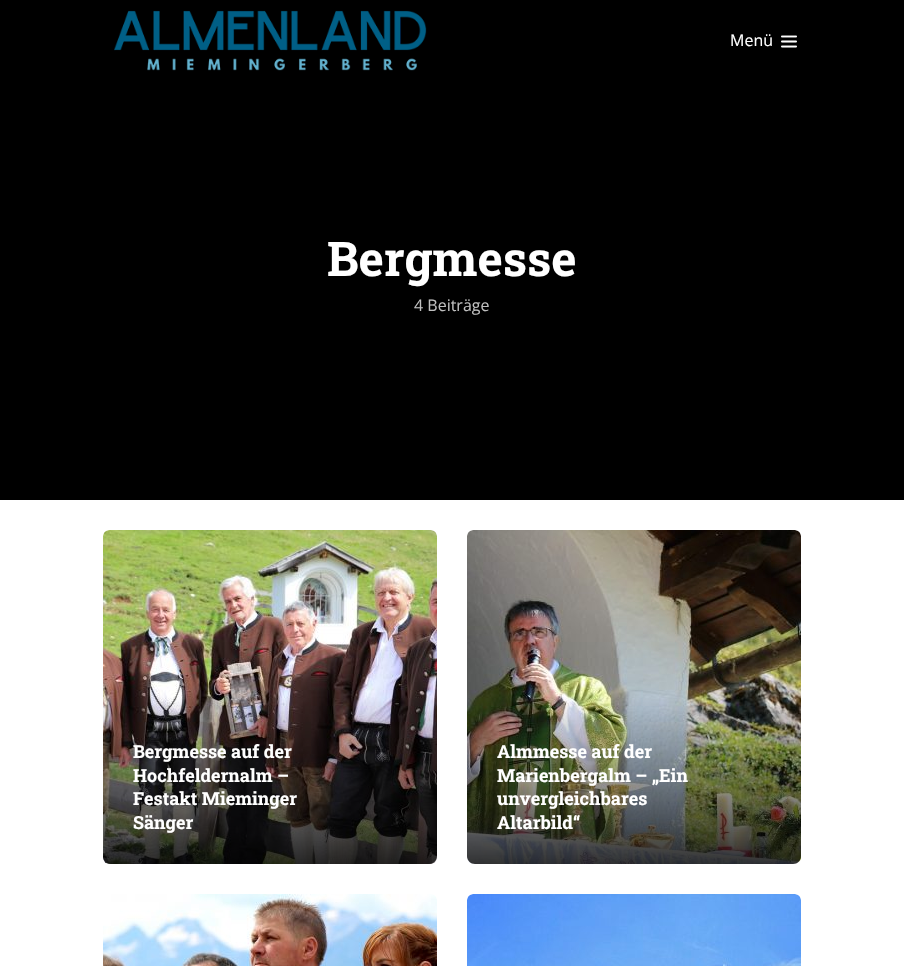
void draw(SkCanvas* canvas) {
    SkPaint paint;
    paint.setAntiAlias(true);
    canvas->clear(0xFFFFFFFF);
    paint.setColor(0xFF000000);
    canvas->drawRect(SkRect::MakeXYWH(0, 0, 904, 500), paint);
    canvas->drawImageRect(SkImages::DeferredFromEncodedData(SkData::MakeFromFileName("img1.png")), SkRect::MakeXYWH(114, 10, 313, 61), SkSamplingOptions());
    SkFont font1(fontMgr->matchFamilyStyle("Open Sans", SkFontStyle::Normal()), 16);
    font1.setSubpixel(true);
    paint.setColor(0xFFFFFFFF);
    canvas->drawString("Menü", 730, 46, font1, paint);
    canvas->drawImageRect(SkImages::DeferredFromEncodedData(SkData::MakeFromFileName("img2.png")), SkRect::MakeXYWH(781, 35, 16, 13), SkSamplingOptions());
    SkFont font2(fontMgr->matchFamilyStyle("Roboto Slab", SkFontStyle::Bold()), 48);
    font2.setSubpixel(true);
    canvas->drawString("Bergmesse", 327, 276, font2, paint);
    paint.setColor(0xFFBFBFBF);
    canvas->drawString("4 Beiträge", 414, 311, font1, paint);
    canvas->drawImageRect(SkImages::DeferredFromEncodedData(SkData::MakeFromFileName("img3.png")), SkRect::MakeXYWH(103, 530, 334, 334), SkSamplingOptions());
    {
        const SkColor colors[] = {0x00000000, 0xCC000000};
        const float stops[] = {0, 1};
        const SkPoint ends[] = {{270, 697}, {270, 864}};
        paint.setShader(SkGradientShader::MakeLinear(ends, colors, stops, 2, SkTileMode::kClamp));
        paint.setAlpha(255);
    }
    canvas->drawPath(SkPathBuilder().moveTo(103, 697).lineTo(437, 697).lineTo(437, 856).cubicTo(437, 860.5f, 433.5f, 864, 429, 864).lineTo(111, 864).cubicTo(106.5f, 864, 103, 860.5f, 103, 856).close().detach(), paint);
    SkFont font3(fontMgr->matchFamilyStyle("Roboto Slab", SkFontStyle::Bold()), 18);
    font3.setSubpixel(true);
    paint.setShader(nullptr);
    paint.setColor(0xFFFFFFFF);
    canvas->drawString("Bergmesse auf der", 133, 758, font3, paint);
    canvas->drawString("Hochfeldernalm –", 133, 782, font3, paint);
    canvas->drawString("Festakt Mieminger", 133, 805, font3, paint);
    canvas->drawString("Sänger", 133, 829, font3, paint);
    canvas->drawImageRect(SkImages::DeferredFromEncodedData(SkData::MakeFromFileName("img4.png")), SkRect::MakeXYWH(467, 530, 334, 334), SkSamplingOptions());
    {
        const SkColor colors[] = {0x00000000, 0xCC000000};
        const float stops[] = {0, 1};
        const SkPoint ends[] = {{634, 697}, {634, 864}};
        paint.setShader(SkGradientShader::MakeLinear(ends, colors, stops, 2, SkTileMode::kClamp));
        paint.setAlpha(255);
    }
    canvas->drawPath(SkPathBuilder().moveTo(467, 697).lineTo(801, 697).lineTo(801, 856).cubicTo(801, 860.5f, 797.5f, 864, 793, 864).lineTo(475, 864).cubicTo(470.5f, 864, 467, 860.5f, 467, 856).close().detach(), paint);
    paint.setShader(nullptr);
    paint.setColor(0xFFFFFFFF);
    canvas->drawString("Almmesse auf der", 497, 758, font3, paint);
    canvas->drawString("Marienbergalm – „Ein", 497, 782, font3, paint);
    canvas->drawString("unvergleichbares", 497, 805, font3, paint);
    canvas->drawString("Altarbild“", 497, 829, font3, paint);
    canvas->drawImageRect(SkImages::DeferredFromEncodedData(SkData::MakeFromFileName("img5.png")), SkRect::MakeXYWH(103, 894, 334, 72), SkSamplingOptions());
    canvas->drawImageRect(SkImages::DeferredFromEncodedData(SkData::MakeFromFileName("img6.png")), SkRect::MakeXYWH(467, 894, 334, 72), SkSamplingOptions());
}
